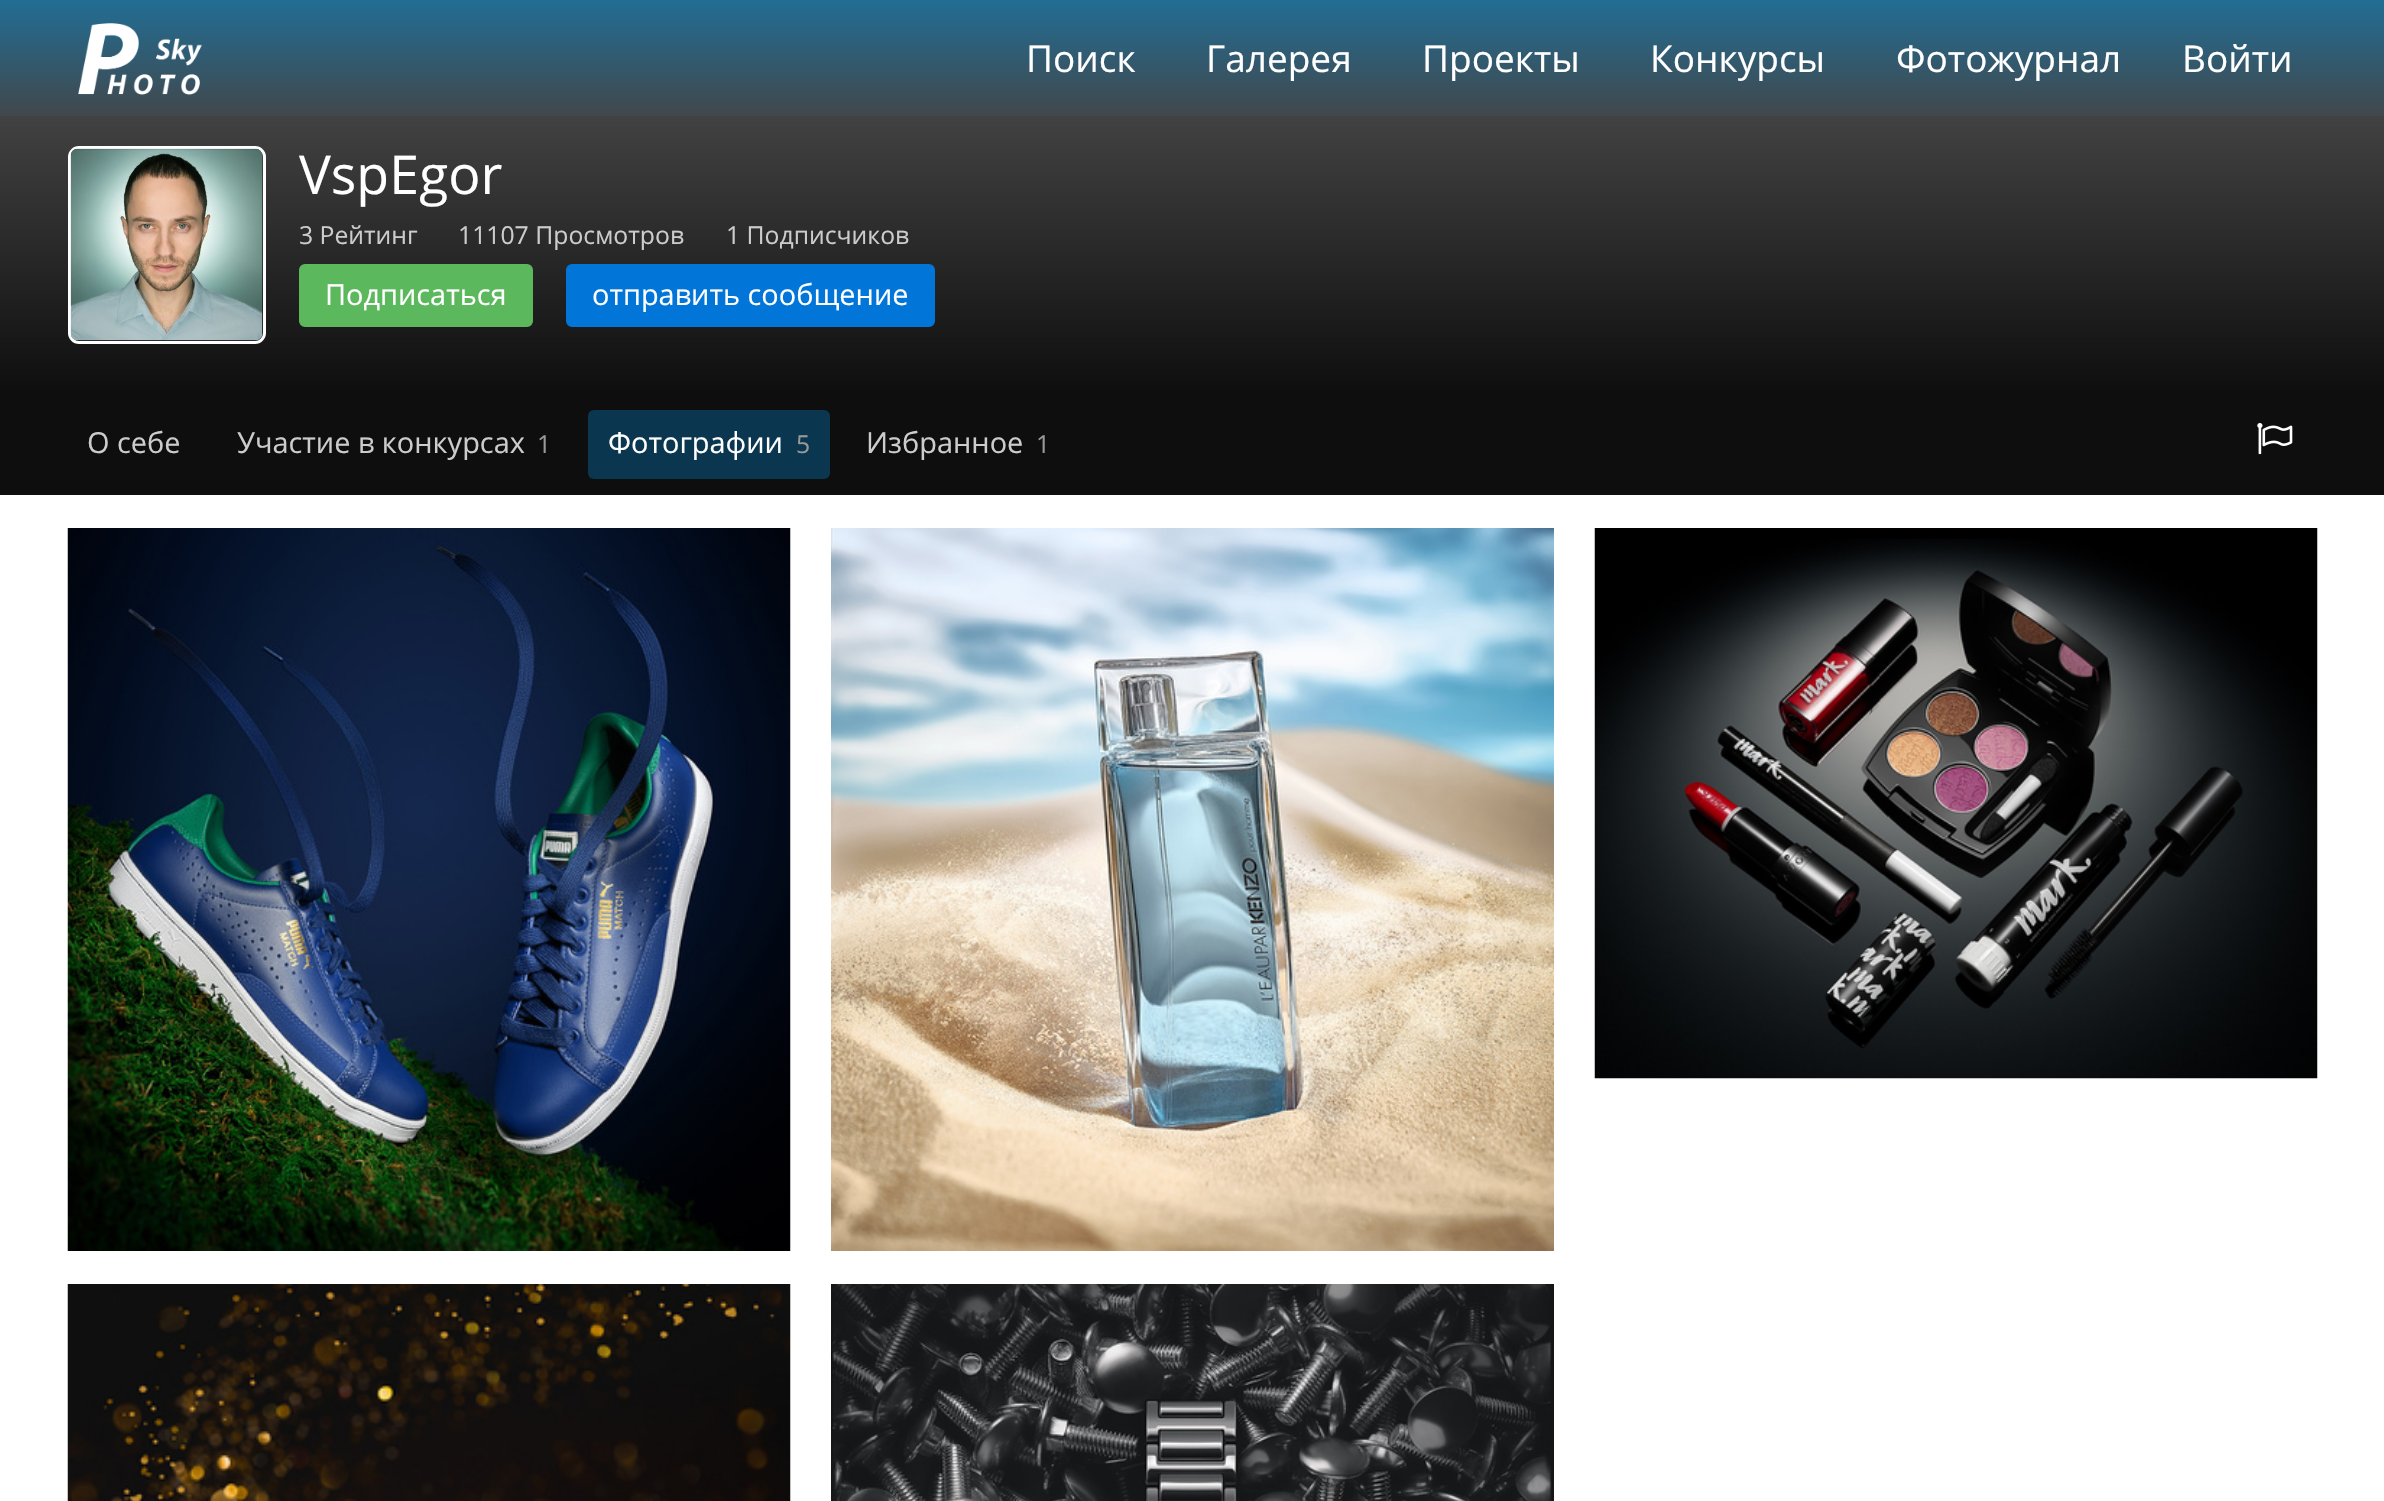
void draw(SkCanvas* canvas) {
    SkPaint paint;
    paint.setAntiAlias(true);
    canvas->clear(0xFFFFFFFF);
    {
        const SkColor colors[] = {0xFF226D94, 0xFF41484C};
        const float stops[] = {0, 1};
        const SkPoint ends[] = {{1193, 0}, {1193, 116}};
        paint.setShader(SkGradientShader::MakeLinear(ends, colors, stops, 2, SkTileMode::kClamp));
        paint.setAlpha(255);
    }
    canvas->drawRect(SkRect::MakeXYWH(0, 0, 2384, 116), paint);
    canvas->drawImageRect(SkImages::DeferredFromEncodedData(SkData::MakeFromFileName("img1.png")), SkRect::MakeXYWH(78, 23, 124, 72), SkSamplingOptions());
    SkFont font1(fontMgr->matchFamilyStyle("Open Sans", SkFontStyle::Normal()), 37);
    font1.setSubpixel(true);
    paint.setShader(nullptr);
    paint.setColor(0xFFFFFFFF);
    canvas->drawString("Поиск", 1026, 72, font1, paint);
    canvas->drawString("Галерея", 1206, 72, font1, paint);
    canvas->drawString("Проекты", 1422, 72, font1, paint);
    canvas->drawString("Конкурсы", 1650, 72, font1, paint);
    canvas->drawString("Фотожурнал", 1896, 72, font1, paint);
    canvas->drawString("Войти", 2182, 72, font1, paint);
    {
        const SkColor colors[] = {0xFF444444, 0xFF0E0E0E};
        const float stops[] = {0, 1};
        const SkPoint ends[] = {{1193, 103}, {1193, 393}};
        paint.setShader(SkGradientShader::MakeLinear(ends, colors, stops, 2, SkTileMode::kClamp));
        paint.setAlpha(255);
    }
    canvas->drawRect(SkRect::MakeXYWH(0, 116, 2384, 277), paint);
    paint.setStyle(SkPaint::kStroke_Style);
    paint.setStrokeWidth(3);
    paint.setShader(nullptr);
    paint.setColor(0xFFFFFFFF);
    canvas->drawRoundRect(SkRect::MakeXYWH(69.5f, 147.5f, 195, 195), 9.5f, 9.5f, paint);
    canvas->drawImageRect(SkImages::DeferredFromEncodedData(SkData::MakeFromFileName("img2.png")), SkRect::MakeXYWH(70, 148, 193, 193), SkSamplingOptions());
    SkFont font2(fontMgr->matchFamilyStyle("Open Sans", SkFontStyle::Normal()), 53.5f);
    font2.setSubpixel(true);
    paint.setStyle(SkPaint::kFill_Style);
    canvas->drawString("VspEgor", 299, 194, font2, paint);
    SkFont font3(fontMgr->matchFamilyStyle("Open Sans", SkFontStyle::Normal()), 24.75f);
    font3.setSubpixel(true);
    paint.setColor(0xFFCCCCCC);
    canvas->drawString("3 Рейтинг", 299, 244, font3, paint);
    canvas->drawString("11107 Просмотров", 458, 244, font3, paint);
    canvas->drawString("1 Подписчиков", 726, 244, font3, paint);
    paint.setColor(0xFF5CB85C);
    canvas->drawRoundRect(SkRect::MakeXYWH(300, 265, 232, 61), 5, 5, paint);
    paint.setStyle(SkPaint::kStroke_Style);
    paint.setStrokeWidth(2);
    canvas->drawRoundRect(SkRect::MakeXYWH(300, 265, 232, 61), 5, 5, paint);
    SkFont font4(fontMgr->matchFamilyStyle("Open Sans", SkFontStyle::Normal()), 28.9f);
    font4.setSubpixel(true);
    paint.setStyle(SkPaint::kFill_Style);
    paint.setColor(0xFFFFFFFF);
    canvas->drawString("Подписаться", 325, 305, font4, paint);
    paint.setColor(0xFF0275D8);
    canvas->drawRoundRect(SkRect::MakeXYWH(567, 265, 367, 61), 5, 5, paint);
    paint.setStyle(SkPaint::kStroke_Style);
    canvas->drawRoundRect(SkRect::MakeXYWH(567, 265, 367, 61), 5, 5, paint);
    paint.setStyle(SkPaint::kFill_Style);
    paint.setColor(0xFFFFFFFF);
    canvas->drawString("отправить сообщение", 592, 305, font4, paint);
    paint.setColor(0xFF0E0E0E);
    canvas->drawRect(SkRect::MakeXYWH(0, 393, 2384, 102), paint);
    paint.setColor(0xFFCCCCCC);
    canvas->drawString("О себе", 87, 453, font4, paint);
    canvas->drawString("Участие в конкурсах", 237, 453, font4, paint);
    paint.setColor(0xFF999999);
    canvas->drawString("1", 537, 453, font3, paint);
    paint.setColor(0xFF0A374F);
    canvas->drawRoundRect(SkRect::MakeXYWH(588, 410, 242, 69), 6, 6, paint);
    paint.setColor(0xFFFFFFFF);
    canvas->drawString("Фотографии", 608, 453, font4, paint);
    paint.setColor(0xFF999999);
    canvas->drawString("5", 796, 453, font3, paint);
    paint.setColor(0xFFCCCCCC);
    canvas->drawString("Избранное", 866, 453, font4, paint);
    paint.setColor(0xFF999999);
    canvas->drawString("1", 1036, 453, font3, paint);
    canvas->drawImageRect(SkImages::DeferredFromEncodedData(SkData::MakeFromFileName("img3.png")), SkRect::MakeXYWH(2257, 423, 36, 32), SkSamplingOptions());
    canvas->drawImageRect(SkImages::DeferredFromEncodedData(SkData::MakeFromFileName("img4.png")), SkRect::MakeXYWH(67, 528, 724, 723), SkSamplingOptions());
    canvas->drawImageRect(SkImages::DeferredFromEncodedData(SkData::MakeFromFileName("img5.png")), SkRect::MakeXYWH(831, 528, 723, 723), SkSamplingOptions());
    canvas->drawImageRect(SkImages::DeferredFromEncodedData(SkData::MakeFromFileName("img6.png")), SkRect::MakeXYWH(1594, 528, 724, 551), SkSamplingOptions());
    canvas->drawImageRect(SkImages::DeferredFromEncodedData(SkData::MakeFromFileName("img7.png")), SkRect::MakeXYWH(67, 1284, 724, 217), SkSamplingOptions());
    canvas->drawImageRect(SkImages::DeferredFromEncodedData(SkData::MakeFromFileName("img8.png")), SkRect::MakeXYWH(831, 1284, 723, 217), SkSamplingOptions());
}
